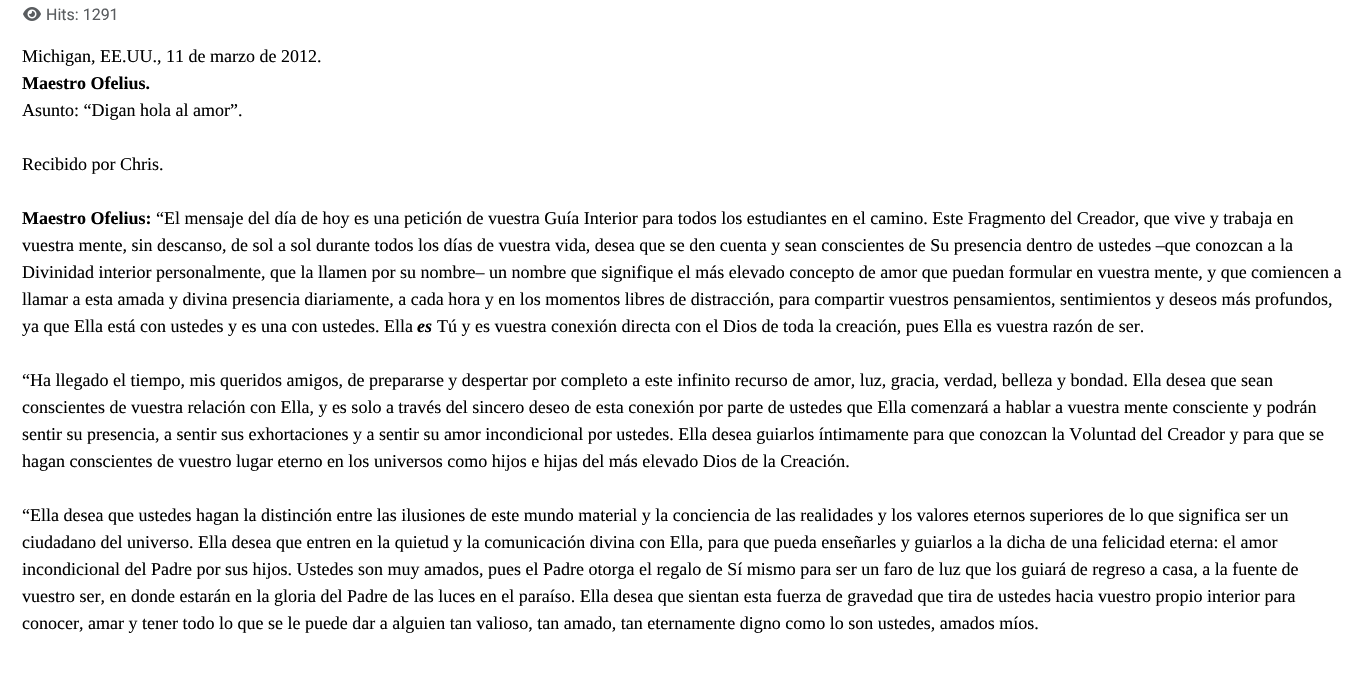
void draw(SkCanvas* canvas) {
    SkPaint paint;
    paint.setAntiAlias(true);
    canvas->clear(0xFFFFFFFF);
    canvas->drawImageRect(SkImages::DeferredFromEncodedData(SkData::MakeFromFileName("img1.png")), SkRect::MakeXYWH(23, 7, 18, 14), SkSamplingOptions());
    SkFont font1(fontMgr->matchFamilyStyle("Roboto", SkFontStyle::Normal()), 16);
    font1.setSubpixel(true);
    paint.setColor(0xFF595C5F);
    canvas->drawString("Hits: 1291", 46, 20, font1, paint);
    SkFont font2(fontMgr->matchFamilyStyle("Liberation Serif", SkFontStyle::Normal()), 18);
    font2.setSubpixel(true);
    paint.setColor(0xFF000000);
    canvas->drawString("Michigan, EE.UU., 11 de marzo de 2012.", 22, 62, font2, paint);
    SkFont font3(fontMgr->matchFamilyStyle("Liberation Serif", SkFontStyle::Bold()), 18);
    font3.setSubpixel(true);
    canvas->drawString("Maestro Ofelius.", 22, 89, font3, paint);
    canvas->drawString("Asunto: “Digan hola al amor”.", 22, 116, font2, paint);
    canvas->drawString("Recibido por Chris.", 22, 170, font2, paint);
    canvas->drawString("Maestro Ofelius:", 22, 224, font3, paint);
    canvas->drawString("“El mensaje del día de hoy es una petición de vuestra Guía Interior para todos los estudiantes en el camino. Este Fragmento del Creador, que vive y trabaja en", 156, 224, font2, paint);
    canvas->drawString("vuestra mente, sin descanso, de sol a sol durante todos los días de vuestra vida, desea que se den cuenta y sean conscientes de Su presencia dentro de ustedes –que conozcan a la", 22, 251, font2, paint);
    canvas->drawString("Divinidad interior personalmente, que la llamen por su nombre– un nombre que signifique el más elevado concepto de amor que puedan formular en vuestra mente, y que comiencen a", 22, 278, font2, paint);
    canvas->drawString("llamar a esta amada y divina presencia diariamente, a cada hora y en los momentos libres de distracción, para compartir vuestros pensamientos, sentimientos y deseos más profundos,", 22, 305, font2, paint);
    canvas->drawString("ya que Ella está con ustedes y es una con ustedes. Ella", 22, 332, font2, paint);
    SkFont font4(fontMgr->matchFamilyStyle("Liberation Serif", SkFontStyle::BoldItalic()), 18);
    font4.setSubpixel(true);
    canvas->drawString("es", 417, 332, font4, paint);
    canvas->drawString("Tú y es vuestra conexión directa con el Dios de toda la creación, pues Ella es vuestra razón de ser.", 437, 332, font2, paint);
    canvas->drawString("“Ha llegado el tiempo, mis queridos amigos, de prepararse y despertar por completo a este infinito recurso de amor, luz, gracia, verdad, belleza y bondad. Ella desea que sean", 22, 386, font2, paint);
    canvas->drawString("conscientes de vuestra relación con Ella, y es solo a través del sincero deseo de esta conexión por parte de ustedes que Ella comenzará a hablar a vuestra mente consciente y podrán", 22, 413, font2, paint);
    canvas->drawString("sentir su presencia, a sentir sus exhortaciones y a sentir su amor incondicional por ustedes. Ella desea guiarlos íntimamente para que conozcan la Voluntad del Creador y para que se", 22, 440, font2, paint);
    canvas->drawString("hagan conscientes de vuestro lugar eterno en los universos como hijos e hijas del más elevado Dios de la Creación.", 22, 467, font2, paint);
    canvas->drawString("“Ella desea que ustedes hagan la distinción entre las ilusiones de este mundo material y la conciencia de las realidades y los valores eternos superiores de lo que significa ser un", 22, 521, font2, paint);
    canvas->drawString("ciudadano del universo. Ella desea que entren en la quietud y la comunicación divina con Ella, para que pueda enseñarles y guiarlos a la dicha de una felicidad eterna: el amor", 22, 548, font2, paint);
    canvas->drawString("incondicional del Padre por sus hijos. Ustedes son muy amados, pues el Padre otorga el regalo de Sí mismo para ser un faro de luz que los guiará de regreso a casa, a la fuente de", 22, 575, font2, paint);
    canvas->drawString("vuestro ser, en donde estarán en la gloria del Padre de las luces en el paraíso. Ella desea que sientan esta fuerza de gravedad que tira de ustedes hacia vuestro propio interior para", 22, 602, font2, paint);
    canvas->drawString("conocer, amar y tener todo lo que se le puede dar a alguien tan valioso, tan amado, tan eternamente digno como lo son ustedes, amados míos.", 22, 629, font2, paint);
}
